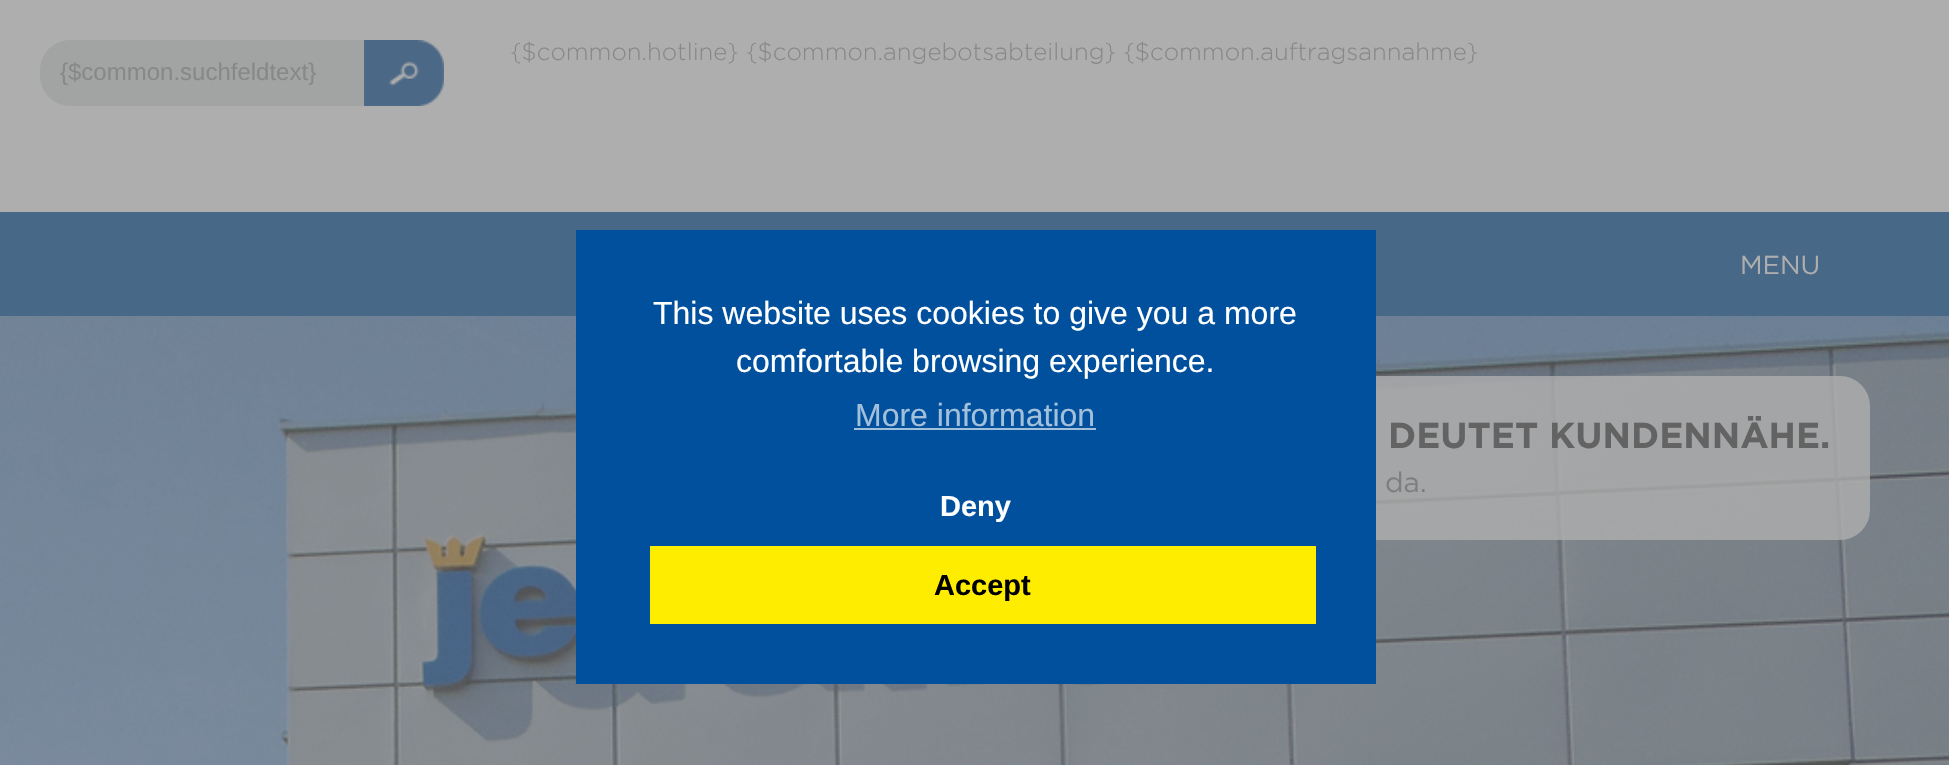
void draw(SkCanvas* canvas) {
    SkPaint paint;
    paint.setAntiAlias(true);
    canvas->clear(0xFFAEAEAE);
    SkFont font1(fontMgr->matchFamilyStyle("Gotham", SkFontStyle(300, SkFontStyle::kNormal_Width, SkFontStyle::kUpright_Slant)), 24);
    font1.setSubpixel(true);
    paint.setColor(0xFF888888);
    canvas->drawString("{$common.hotline} {$common.angebotsabteilung} {$common.auftragsannahme}", 510, 60, font1, paint);
    paint.setColor(0xFFA2A3A3);
    canvas->drawRoundRect(SkRect::MakeXYWH(40, 40, 350, 66), 30, 30, paint);
    SkFont font2(fontMgr->matchFamilyStyle("Liberation Sans", SkFontStyle::Normal()), 24);
    font2.setSubpixel(true);
    paint.setColor(0xFF888888);
    canvas->drawString("{$common.suchfeldtext}", 60, 80, font2, paint);
    canvas->drawImageRect(SkImages::DeferredFromEncodedData(SkData::MakeFromFileName("img1.png")), SkRect::MakeXYWH(364, 40, 80, 66), SkSamplingOptions());
    paint.setColor(0xFF486887);
    canvas->drawRect(SkRect::MakeXYWH(0, 212, 1949, 104), paint);
    SkFont font3(fontMgr->matchFamilyStyle("Gotham", SkFontStyle::Normal()), 26);
    font3.setSubpixel(true);
    paint.setColor(0xFFAEAEAE);
    canvas->drawString("MENU", 1740, 274, font3, paint);
    canvas->drawImageRect(SkImages::DeferredFromEncodedData(SkData::MakeFromFileName("img2.png")), SkRect::MakeXYWH(0, 316, 1949, 449), SkSamplingOptions());
    paint.setColor(0xFF00509D);
    canvas->drawRect(SkRect::MakeXYWH(576, 230, 800, 454), paint);
    SkFont font4(fontMgr->matchFamilyStyle("Liberation Sans", SkFontStyle::Normal()), 32);
    font4.setSubpixel(true);
    paint.setColor(0xFFFFFFFF);
    canvas->drawString("This website uses cookies to give you a more", 653, 324, font4, paint);
    canvas->drawString("comfortable browsing experience.", 736, 372, font4, paint);
    paint.setColor(0xFFA3C0DB);
    canvas->drawString("More information", 855, 426, font4, paint);
    canvas->drawRect(SkRect::MakeXYWH(854, 428, 242, 2), paint);
    SkFont font5(fontMgr->matchFamilyStyle("Liberation Sans", SkFontStyle::Bold()), 29);
    font5.setSubpixel(true);
    paint.setColor(0xFFFFFFFF);
    canvas->drawString("Deny", 940, 516, font5, paint);
    paint.setColor(0xFFFFED00);
    canvas->drawRect(SkRect::MakeXYWH(650, 546, 666, 78), paint);
    paint.setColor(0xFF000000);
    canvas->drawString("Accept", 934, 595, font5, paint);
    canvas->drawImageRect(SkImages::DeferredFromEncodedData(SkData::MakeFromFileName("img3.png")), SkRect::MakeXYWH(1376, 376, 494, 164), SkSamplingOptions());
    SkFont font6(fontMgr->matchFamilyStyle("Gotham", SkFontStyle::Bold()), 36);
    font6.setSubpixel(true);
    paint.setColor(0xFF636363);
    canvas->drawString("DEUTET KUNDENNÄHE.", 1388, 448, font6, paint);
    SkFont font7(fontMgr->matchFamilyStyle("Gotham", SkFontStyle::Normal()), 28);
    font7.setSubpixel(true);
    paint.setColor(0xFF7E7E7F);
    canvas->drawString("da.", 1385, 492, font7, paint);
}
